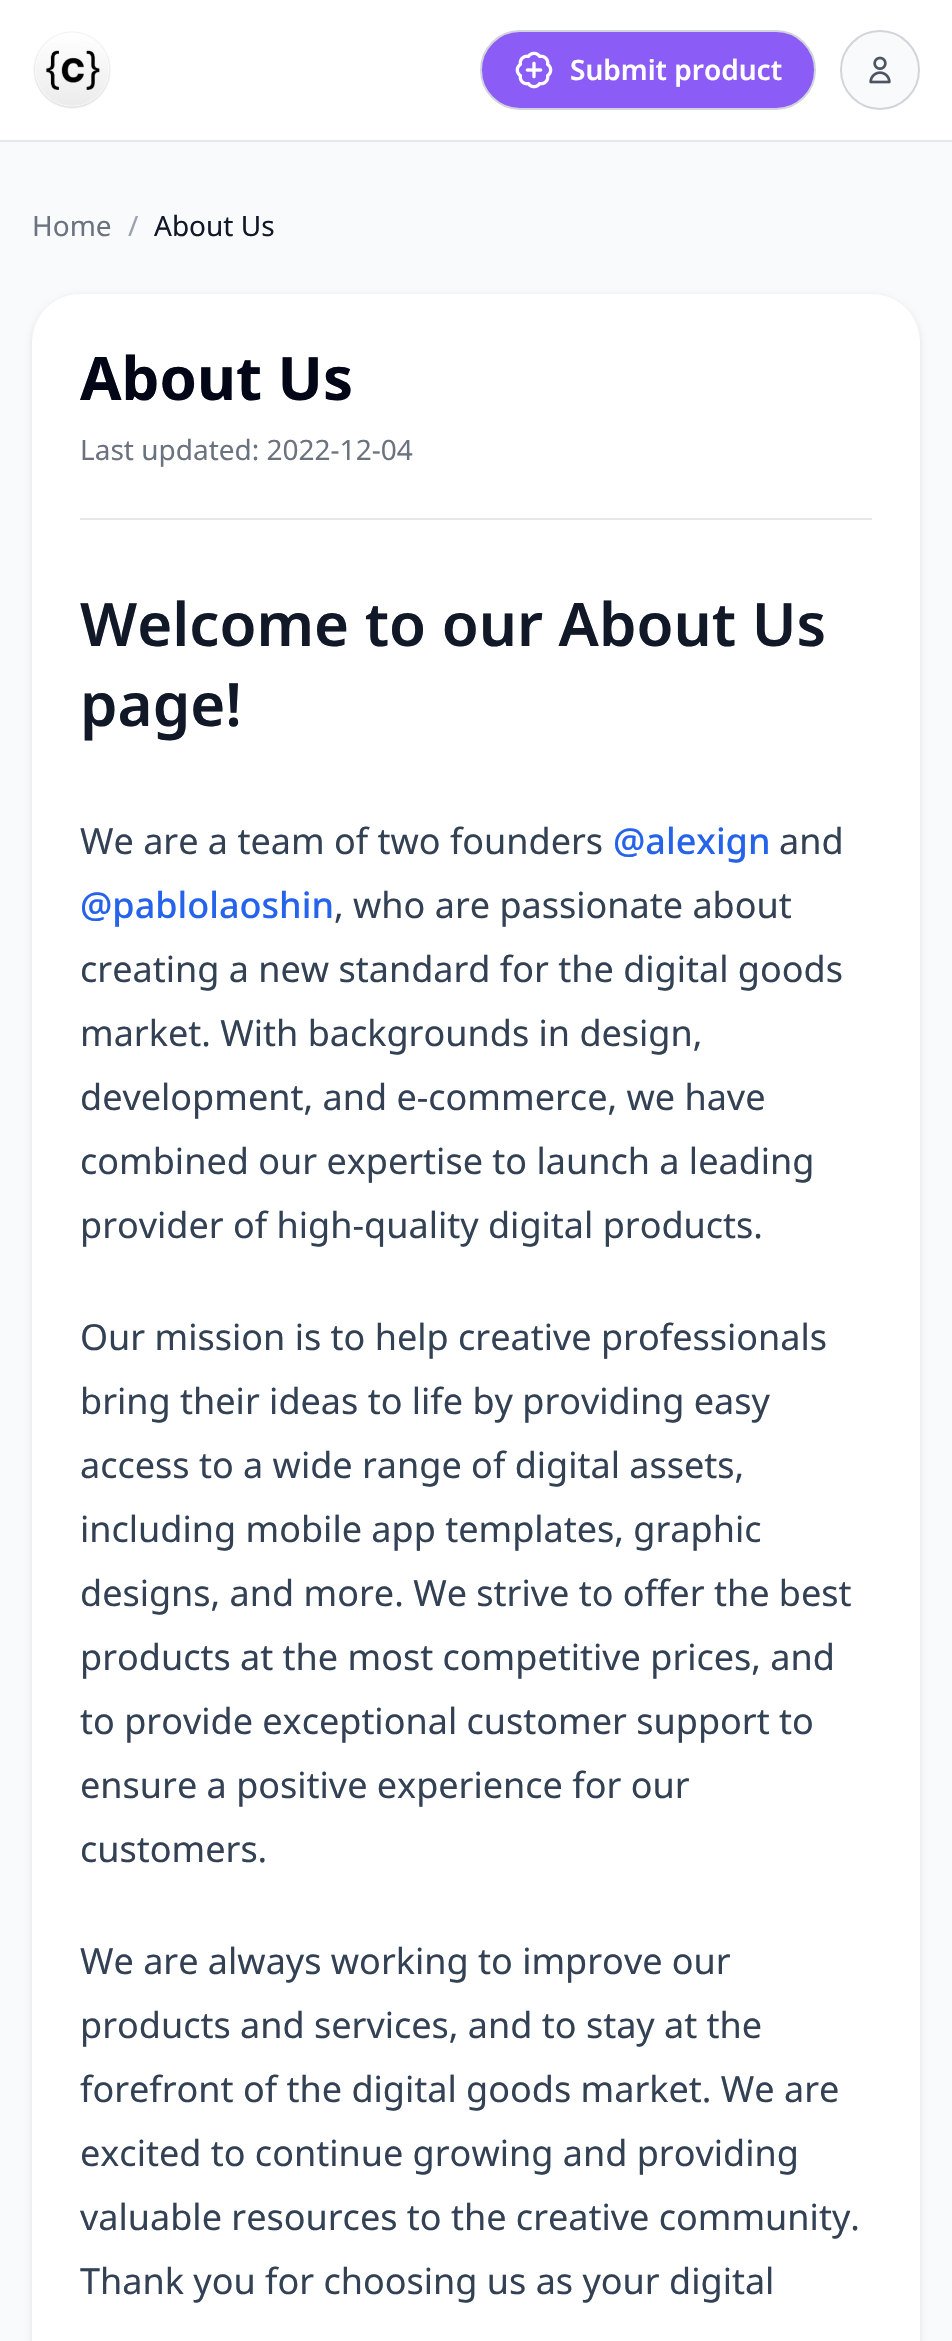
void draw(SkCanvas* canvas) {
    SkPaint paint;
    paint.setAntiAlias(true);
    canvas->clear(0xFFFFFFFF);
    paint.setColor(0xFFE5E7EB);
    canvas->drawRect(SkRect::MakeXYWH(0, 140, 952, 2), paint);
    canvas->drawImageRect(SkImages::DeferredFromEncodedData(SkData::MakeFromFileName("img1.png")), SkRect::MakeXYWH(33, 31, 78, 78), SkSamplingOptions());
    paint.setColor(0xFF8B5CF6);
    canvas->drawRoundRect(SkRect::MakeXYWH(481, 31, 334, 78), 39, 39, paint);
    paint.setStyle(SkPaint::kStroke_Style);
    paint.setStrokeWidth(2);
    paint.setColor(0xFFD1D5DB);
    canvas->drawRoundRect(SkRect::MakeXYWH(481, 31, 334, 78), 39, 39, paint);
    canvas->drawImageRect(SkImages::DeferredFromEncodedData(SkData::MakeFromFileName("img2.png")), SkRect::MakeXYWH(515, 51, 38, 38), SkSamplingOptions());
    SkFont font1(fontMgr->matchFamilyStyle("Noto Sans", SkFontStyle(600, SkFontStyle::kNormal_Width, SkFontStyle::kUpright_Slant)), 28);
    font1.setSubpixel(true);
    paint.setStyle(SkPaint::kFill_Style);
    paint.setColor(0xFFFFFFFF);
    canvas->drawString("Submit product", 570, 80, font1, paint);
    paint.setColor(0xFFF9FAFB);
    canvas->drawCircle(880, 70, 39, paint);
    paint.setStyle(SkPaint::kStroke_Style);
    paint.setColor(0xFFD1D5DB);
    canvas->drawCircle(880, 70, 39, paint);
    canvas->drawImageRect(SkImages::DeferredFromEncodedData(SkData::MakeFromFileName("img3.png")), SkRect::MakeXYWH(869, 56, 22, 28), SkSamplingOptions());
    paint.setStyle(SkPaint::kFill_Style);
    paint.setColor(0xFFF9FAFB);
    canvas->drawRect(SkRect::MakeXYWH(0, 142, 952, 2199), paint);
    SkFont font2(fontMgr->matchFamilyStyle("Noto Sans", SkFontStyle::Normal()), 28);
    font2.setSubpixel(true);
    paint.setColor(0xFF6B7280);
    canvas->drawString("Home", 32, 236, font2, paint);
    paint.setColor(0xFF9CA3AF);
    canvas->drawString("/", 128, 236, font2, paint);
    paint.setColor(0xFF111827);
    canvas->drawString("About Us", 154, 236, font2, paint);
    paint.setColor(0x1A000000);
    paint.setMaskFilter(SkMaskFilter::MakeBlur(kNormal_SkBlurStyle, 3));
    canvas->drawRoundRect(SkRect::MakeXYWH(32, 296, 888, 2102), 48, 48, paint);
    paint.setMaskFilter(nullptr);
    paint.setColor(0xFFFFFFFF);
    canvas->drawRoundRect(SkRect::MakeXYWH(32, 294, 888, 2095), 48, 48, paint);
    paint.setColor(0xFFE5E7EB);
    canvas->drawRect(SkRect::MakeXYWH(80, 518, 792, 2), paint);
    SkFont font3(fontMgr->matchFamilyStyle("Noto Sans", SkFontStyle::Bold()), 60);
    font3.setSubpixel(true);
    paint.setColor(0xFF020617);
    canvas->drawString("About Us", 80, 400, font3, paint);
    paint.setColor(0xFF6B7280);
    canvas->drawString("Last updated: 2022-12-04", 80, 460, font2, paint);
    SkFont font4(fontMgr->matchFamilyStyle("Noto Sans", SkFontStyle(600, SkFontStyle::kNormal_Width, SkFontStyle::kUpright_Slant)), 60);
    font4.setSubpixel(true);
    paint.setColor(0xFF111827);
    canvas->drawString("Welcome to our About Us", 80, 646, font4, paint);
    canvas->drawString("page!", 80, 726, font4, paint);
    SkFont font5(fontMgr->matchFamilyStyle("Noto Sans", SkFontStyle::Normal()), 36);
    font5.setSubpixel(true);
    paint.setColor(0xFF334155);
    canvas->drawString("We are a team of two founders", 80, 854, font5, paint);
    SkFont font6(fontMgr->matchFamilyStyle("Noto Sans", SkFontStyle(500, SkFontStyle::kNormal_Width, SkFontStyle::kUpright_Slant)), 36);
    font6.setSubpixel(true);
    paint.setColor(0xFF2563EB);
    canvas->drawString("@alexign", 613, 854, font6, paint);
    paint.setColor(0xFF334155);
    canvas->drawString("and", 779, 854, font5, paint);
    paint.setColor(0xFF2563EB);
    canvas->drawString("@pablolaoshin", 80, 918, font6, paint);
    paint.setColor(0xFF334155);
    canvas->drawString(", who are passionate about", 334, 918, font5, paint);
    canvas->drawString("creating a new standard for the digital goods", 80, 982, font5, paint);
    canvas->drawString("market. With backgrounds in design,", 80, 1046, font5, paint);
    canvas->drawString("development, and e-commerce, we have", 80, 1110, font5, paint);
    canvas->drawString("combined our expertise to launch a leading", 80, 1174, font5, paint);
    canvas->drawString("provider of high-quality digital products.", 80, 1238, font5, paint);
    canvas->drawString("Our mission is to help creative professionals", 80, 1350, font5, paint);
    canvas->drawString("bring their ideas to life by providing easy", 80, 1414, font5, paint);
    canvas->drawString("access to a wide range of digital assets,", 80, 1478, font5, paint);
    canvas->drawString("including mobile app templates, graphic", 80, 1542, font5, paint);
    canvas->drawString("designs, and more. We strive to offer the best", 80, 1606, font5, paint);
    canvas->drawString("products at the most competitive prices, and", 80, 1670, font5, paint);
    canvas->drawString("to provide exceptional customer support to", 80, 1734, font5, paint);
    canvas->drawString("ensure a positive experience for our", 80, 1798, font5, paint);
    canvas->drawString("customers.", 80, 1862, font5, paint);
    canvas->drawString("We are always working to improve our", 80, 1974, font5, paint);
    canvas->drawString("products and services, and to stay at the", 80, 2038, font5, paint);
    canvas->drawString("forefront of the digital goods market. We are", 80, 2102, font5, paint);
    canvas->drawString("excited to continue growing and providing", 80, 2166, font5, paint);
    canvas->drawString("valuable resources to the creative community.", 80, 2230, font5, paint);
    canvas->drawString("Thank you for choosing us as your digital", 80, 2294, font5, paint);
}
